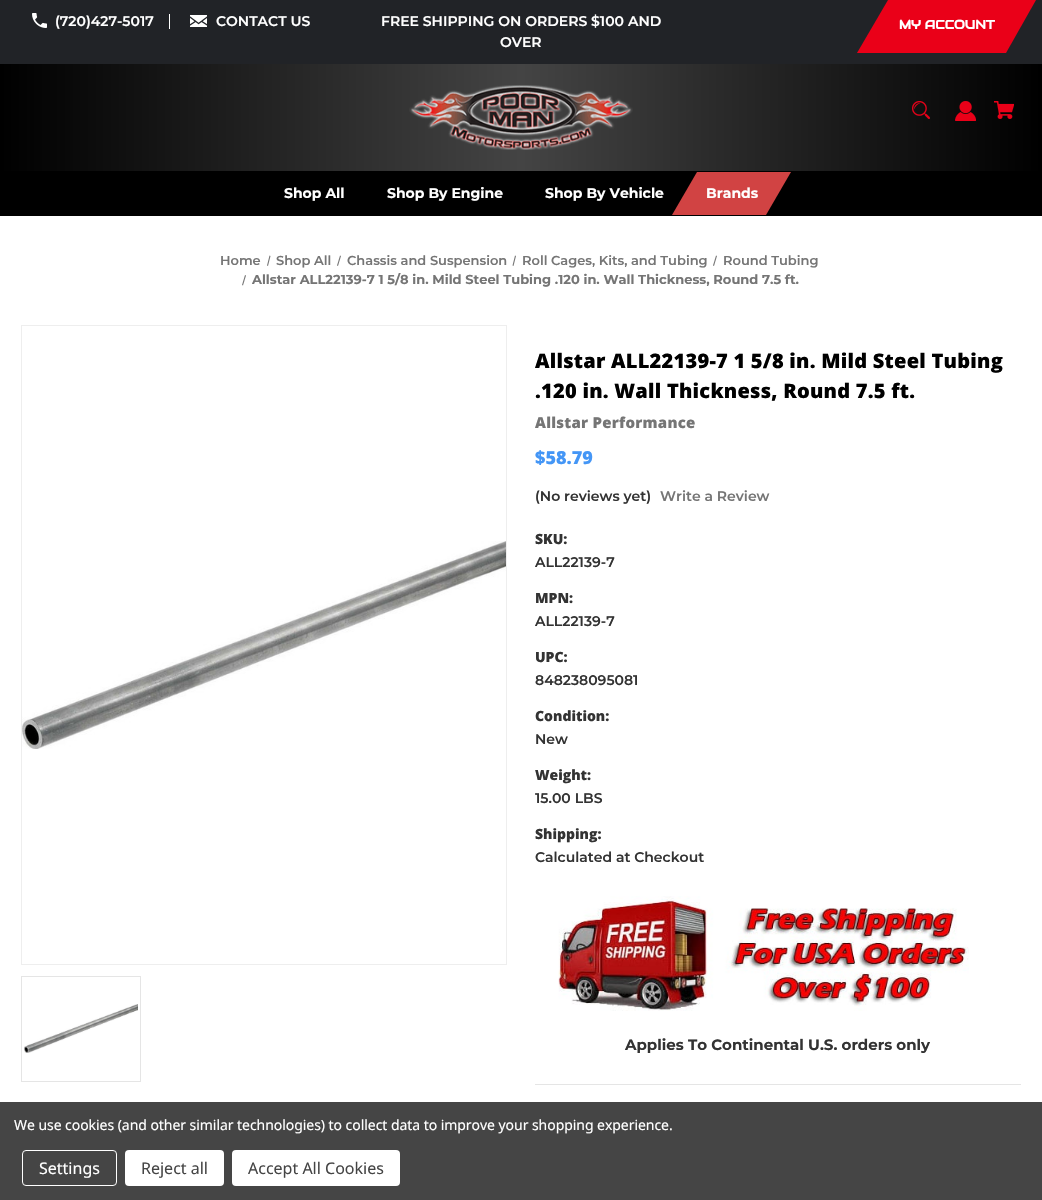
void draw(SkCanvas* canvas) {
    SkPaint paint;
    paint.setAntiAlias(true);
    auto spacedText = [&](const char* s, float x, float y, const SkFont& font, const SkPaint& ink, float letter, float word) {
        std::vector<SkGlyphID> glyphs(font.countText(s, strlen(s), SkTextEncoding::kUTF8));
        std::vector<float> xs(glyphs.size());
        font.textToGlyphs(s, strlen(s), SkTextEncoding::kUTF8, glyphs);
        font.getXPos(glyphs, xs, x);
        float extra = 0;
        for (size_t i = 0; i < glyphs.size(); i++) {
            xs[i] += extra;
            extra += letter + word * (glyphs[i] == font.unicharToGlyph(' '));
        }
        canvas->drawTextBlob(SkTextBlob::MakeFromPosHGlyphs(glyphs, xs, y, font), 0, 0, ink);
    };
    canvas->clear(0xFFFFFFFF);
    paint.setColor(0xFF212327);
    canvas->drawRect(SkRect::MakeXYWH(0, 0, 1042, 64), paint);
    canvas->drawImageRect(SkImages::DeferredFromEncodedData(SkData::MakeFromFileName("img1.png")), SkRect::MakeXYWH(32, 13, 15, 15), SkSamplingOptions());
    SkFont font1(fontMgr->matchFamilyStyle("Montserrat", SkFontStyle(600, SkFontStyle::kNormal_Width, SkFontStyle::kUpright_Slant)), 14);
    font1.setSubpixel(true);
    paint.setColor(0xFFFFFFFF);
    canvas->drawString("(720)427-5017", 55, 26, font1, paint);
    canvas->drawRect(SkRect::MakeXYWH(169, 14, 1, 15), paint);
    canvas->drawImageRect(SkImages::DeferredFromEncodedData(SkData::MakeFromFileName("img2.png")), SkRect::MakeXYWH(190, 15, 17, 12), SkSamplingOptions());
    canvas->drawString("CONTACT US", 216, 26, font1, paint);
    canvas->drawString("FREE SHIPPING ON ORDERS $100 AND", 381, 26, font1, paint);
    canvas->drawString("OVER", 500, 47, font1, paint);
    paint.setColor(0xFFEA0018);
    canvas->drawPath(SkPathBuilder().moveTo(888, 0).lineTo(1036, 0).lineTo(1006, 53).lineTo(857, 53).close().detach(), paint);
    SkFont font2(fontMgr->matchFamilyStyle("Audiowide", SkFontStyle::Bold()), 12.5f);
    font2.setSubpixel(true);
    paint.setColor(0xFFFFFFFF);
    canvas->drawString("MY ACCOUNT", 899, 29, font2, paint);
    {
        const SkColor colors[] = {0xFF000000, 0xFF444444, 0xFF000000};
        const float stops[] = {0, 0.5f, 1};
        const SkPoint ends[] = {{0, 140}, {1042, 140}};
        paint.setShader(SkGradientShader::MakeLinear(ends, colors, stops, 3, SkTileMode::kClamp));
        paint.setAlpha(255);
    }
    canvas->drawRect(SkRect::MakeXYWH(0, 64, 1042, 107), paint);
    canvas->drawImageRect(SkImages::DeferredFromEncodedData(SkData::MakeFromFileName("img3.png")), SkRect::MakeXYWH(409, 85, 224, 65), SkSamplingOptions());
    canvas->drawImageRect(SkImages::DeferredFromEncodedData(SkData::MakeFromFileName("img4.png")), SkRect::MakeXYWH(912, 101, 18, 18), SkSamplingOptions());
    canvas->drawImageRect(SkImages::DeferredFromEncodedData(SkData::MakeFromFileName("img5.png")), SkRect::MakeXYWH(955, 101, 21, 20), SkSamplingOptions());
    canvas->drawImageRect(SkImages::DeferredFromEncodedData(SkData::MakeFromFileName("img6.png")), SkRect::MakeXYWH(994, 101, 20, 18), SkSamplingOptions());
    paint.setShader(nullptr);
    paint.setColor(0xFF000000);
    canvas->drawRect(SkRect::MakeXYWH(0, 171, 1042, 45), paint);
    SkFont font3(fontMgr->matchFamilyStyle("Montserrat", SkFontStyle::Bold()), 14);
    font3.setSubpixel(true);
    paint.setColor(0xFFFFFFFF);
    canvas->drawString("Shop All", 284, 198, font3, paint);
    canvas->drawString("Shop By Engine", 387, 198, font3, paint);
    canvas->drawString("Shop By Vehicle", 545, 198, font3, paint);
    paint.setColor(0xFFD14343);
    canvas->drawPath(SkPathBuilder().moveTo(697, 172).lineTo(791, 172).lineTo(766, 215).lineTo(672, 215).close().detach(), paint);
    paint.setColor(0xFFFFFFFF);
    canvas->drawString("Brands", 706, 198, font3, paint);
    SkFont font4(fontMgr->matchFamilyStyle("Montserrat", SkFontStyle(600, SkFontStyle::kNormal_Width, SkFontStyle::kUpright_Slant)), 13);
    font4.setSubpixel(true);
    paint.setColor(0xFF757575);
    canvas->drawString("Home", 220, 265, font4, paint);
    canvas->drawPath(SkPathBuilder().moveTo(269.5f, 255.5f).lineTo(270.5f, 256).lineTo(268, 266).lineTo(267, 265.5f).close().detach(), paint);
    canvas->drawString("Shop All", 276, 265, font4, paint);
    canvas->drawPath(SkPathBuilder().moveTo(340, 255.5f).lineTo(341, 256).lineTo(338, 266).lineTo(337, 265.5f).close().detach(), paint);
    canvas->drawString("Chassis and Suspension", 347, 265, font4, paint);
    canvas->drawPath(SkPathBuilder().moveTo(515, 255.5f).lineTo(516, 256).lineTo(513.5f, 266).lineTo(512.5f, 265.5f).close().detach(), paint);
    canvas->drawString("Roll Cages, Kits, and Tubing", 522, 265, font4, paint);
    canvas->drawPath(SkPathBuilder().moveTo(716, 255.5f).lineTo(717, 256).lineTo(714, 266).lineTo(713, 265.5f).close().detach(), paint);
    canvas->drawString("Round Tubing", 723, 265, font4, paint);
    canvas->drawPath(SkPathBuilder().moveTo(245, 275).lineTo(246, 275.5f).lineTo(243, 285.5f).lineTo(242, 285).close().detach(), paint);
    SkFont font5(fontMgr->matchFamilyStyle("Montserrat", SkFontStyle::Bold()), 13);
    font5.setSubpixel(true);
    canvas->drawString("Allstar ALL22139-7 1 5/8 in. Mild Steel Tubing .120 in. Wall Thickness, Round 7.5 ft.", 252, 284, font5, paint);
    paint.setStyle(SkPaint::kStroke_Style);
    paint.setStrokeWidth(1);
    paint.setColor(0xFFEEEEEE);
    canvas->drawRect(SkRect::MakeXYWH(21.5f, 325.5f, 485, 639), paint);
    canvas->drawImageRect(SkImages::DeferredFromEncodedData(SkData::MakeFromFileName("img7.png")), SkRect::MakeXYWH(22, 541, 484, 208), SkSamplingOptions());
    paint.setColor(0xFFE5E5E5);
    canvas->drawRect(SkRect::MakeXYWH(21.5f, 976.5f, 119, 105), paint);
    canvas->drawImageRect(SkImages::DeferredFromEncodedData(SkData::MakeFromFileName("img8.png")), SkRect::MakeXYWH(24, 1004, 114, 49), SkSamplingOptions());
    paint.setStyle(SkPaint::kFill_Style);
    canvas->drawRect(SkRect::MakeXYWH(535, 1084, 486, 1), paint);
    SkFont font6(fontMgr->matchFamilyStyle("Open Sans", SkFontStyle(800, SkFontStyle::kNormal_Width, SkFontStyle::kUpright_Slant)), 20);
    font6.setSubpixel(true);
    paint.setColor(0xFF000000);
    spacedText("Allstar ALL22139-7 1 5/8 in. Mild Steel Tubing", 535, 368, font6, paint, 0.25f, 0);
    spacedText(".120 in. Wall Thickness, Round 7.5 ft.", 535, 398, font6, paint, 0.25f, 0);
    SkFont font7(fontMgr->matchFamilyStyle("Open Sans", SkFontStyle(800, SkFontStyle::kNormal_Width, SkFontStyle::kUpright_Slant)), 15);
    font7.setSubpixel(true);
    paint.setColor(0xFF757575);
    spacedText("Allstar Performance", 535, 428, font7, paint, 0.25f, 0);
    SkFont font8(fontMgr->matchFamilyStyle("Open Sans", SkFontStyle(800, SkFontStyle::kNormal_Width, SkFontStyle::kUpright_Slant)), 18);
    font8.setSubpixel(true);
    paint.setColor(0xFF4496F6);
    canvas->drawString("$58.79", 535, 464, font8, paint);
    paint.setColor(0xFF333333);
    canvas->drawString("(No reviews yet)", 535, 501, font1, paint);
    paint.setColor(0xFF757575);
    canvas->drawString("Write a Review", 660, 501, font1, paint);
    SkFont font9(fontMgr->matchFamilyStyle("Open Sans", SkFontStyle(800, SkFontStyle::kNormal_Width, SkFontStyle::kUpright_Slant)), 14);
    font9.setSubpixel(true);
    paint.setColor(0xFF333333);
    canvas->drawString("SKU:", 535, 544, font9, paint);
    canvas->drawString("ALL22139-7", 535, 567, font1, paint);
    canvas->drawString("MPN:", 535, 603, font9, paint);
    canvas->drawString("ALL22139-7", 535, 626, font1, paint);
    canvas->drawString("UPC:", 535, 662, font9, paint);
    canvas->drawString("848238095081", 535, 685, font1, paint);
    canvas->drawString("Condition:", 535, 721, font9, paint);
    canvas->drawString("New", 535, 744, font1, paint);
    canvas->drawString("Weight:", 535, 780, font9, paint);
    canvas->drawString("15.00 LBS", 535, 803, font1, paint);
    canvas->drawString("Shipping:", 535, 839, font9, paint);
    canvas->drawString("Calculated at Checkout", 535, 862, font1, paint);
    canvas->drawImageRect(SkImages::DeferredFromEncodedData(SkData::MakeFromFileName("img9.png")), SkRect::MakeXYWH(558, 896, 411, 115), SkSamplingOptions());
    SkFont font10(fontMgr->matchFamilyStyle("Montserrat", SkFontStyle::Bold()), 15);
    font10.setSubpixel(true);
    canvas->drawString("Applies To Continental U.S. orders only", 625, 1050, font10, paint);
    paint.setColor(0xFF454545);
    canvas->drawRect(SkRect::MakeXYWH(0, 1102, 1042, 98), paint);
    SkFont font11(fontMgr->matchFamilyStyle("Noto Sans", SkFontStyle::Normal()), 14);
    font11.setSubpixel(true);
    paint.setColor(0xFFFFFFFF);
    spacedText("We use cookies (and other similar technologies) to collect data to improve your shopping experience.", 14, 1130, font11, paint, -0.05f, 0);
    paint.setStyle(SkPaint::kStroke_Style);
    canvas->drawRoundRect(SkRect::MakeXYWH(22.5f, 1150.5f, 94, 35), 3.5f, 3.5f, paint);
    SkFont font12(fontMgr->matchFamilyStyle("Noto Sans", SkFontStyle::Normal()), 16);
    font12.setSubpixel(true);
    paint.setStyle(SkPaint::kFill_Style);
    canvas->drawString("Settings", 39, 1174, font12, paint);
    canvas->drawRoundRect(SkRect::MakeXYWH(125, 1150, 99, 36), 4, 4, paint);
    paint.setColor(0xFF454545);
    canvas->drawString("Reject all", 141, 1174, font12, paint);
    paint.setColor(0xFFFFFFFF);
    canvas->drawRoundRect(SkRect::MakeXYWH(232, 1150, 168, 36), 4, 4, paint);
    paint.setColor(0xFF454545);
    canvas->drawString("Accept All Cookies", 248, 1174, font12, paint);
}
